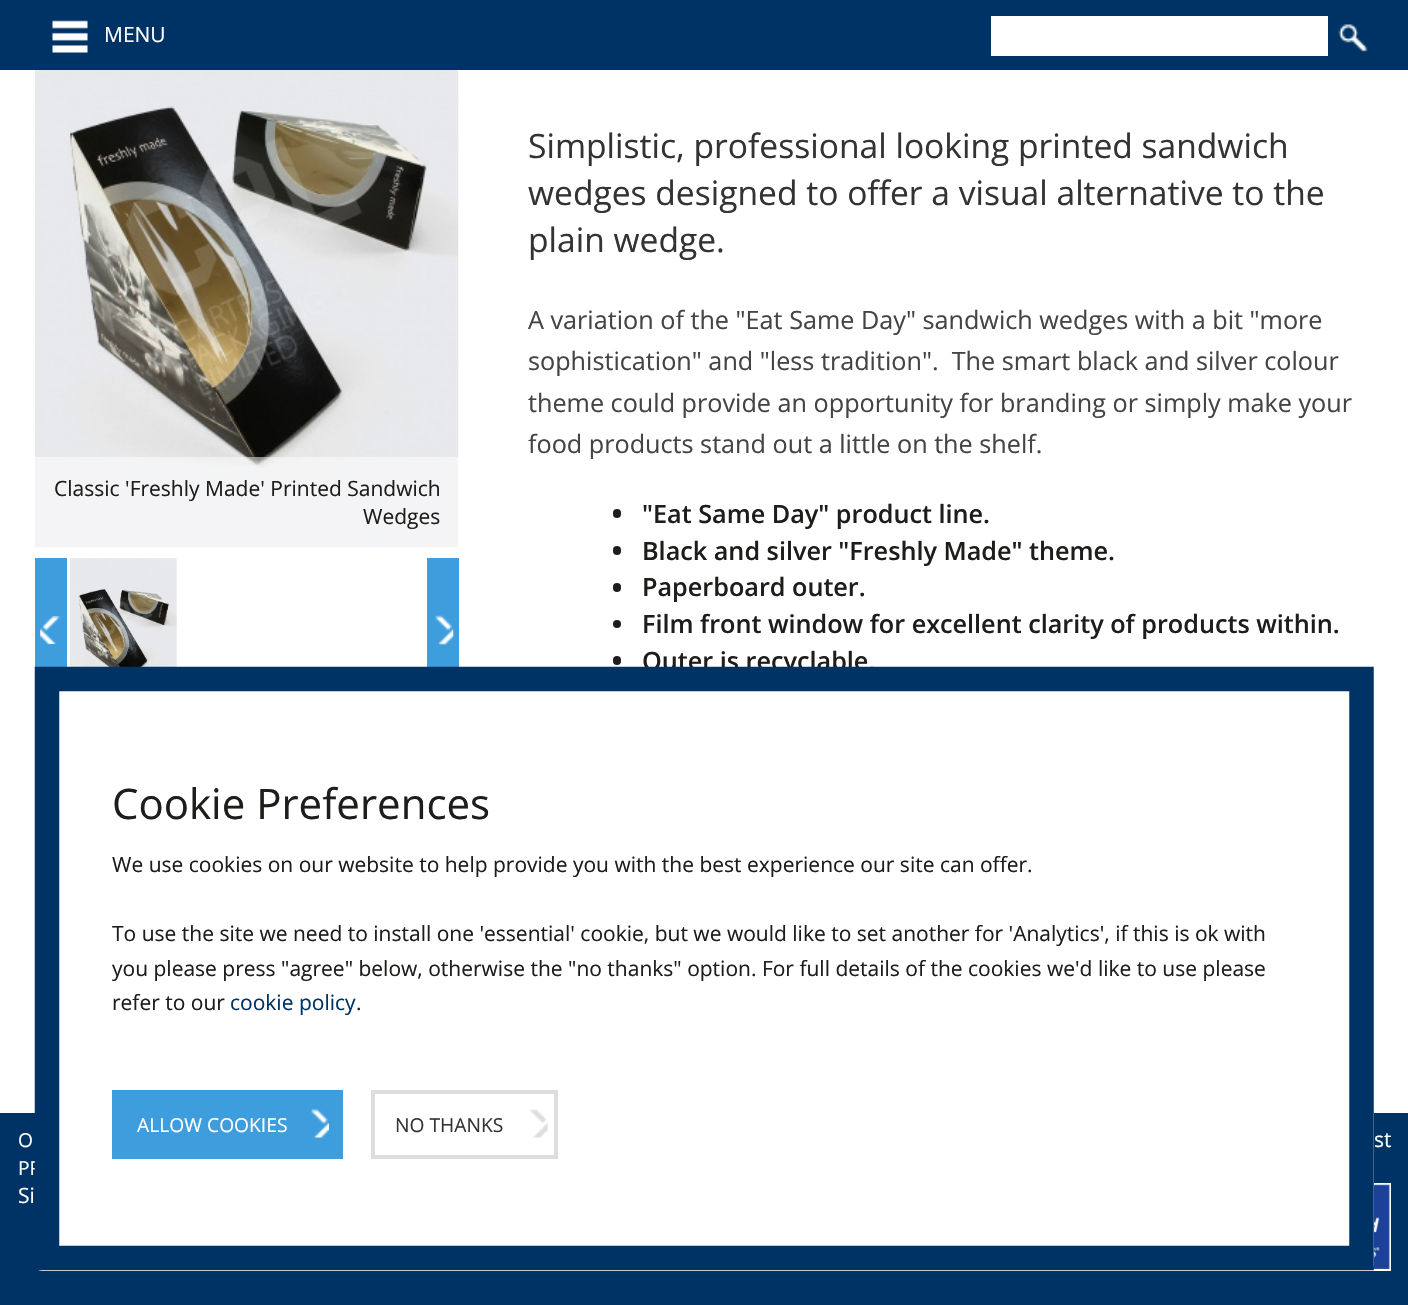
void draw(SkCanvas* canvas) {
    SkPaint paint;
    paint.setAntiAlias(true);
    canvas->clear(0xFFFFFFFF);
    paint.setColor(0xFF003365);
    canvas->drawRect(SkRect::MakeXYWH(0, 0, 1408, 70), paint);
    canvas->drawImageRect(SkImages::DeferredFromEncodedData(SkData::MakeFromFileName("img1.png")), SkRect::MakeXYWH(52, 20, 36, 33), SkSamplingOptions());
    SkFont font1(fontMgr->matchFamilyStyle("Open Sans", SkFontStyle::Normal()), 21);
    font1.setSubpixel(true);
    paint.setColor(0xFFFFFFFF);
    canvas->drawString("MENU", 104, 42, font1, paint);
    canvas->drawRect(SkRect::MakeXYWH(991, 16, 337, 40), paint);
    canvas->drawImageRect(SkImages::DeferredFromEncodedData(SkData::MakeFromFileName("img2.png")), SkRect::MakeXYWH(1338, 24, 30, 28), SkSamplingOptions());
    canvas->drawImageRect(SkImages::DeferredFromEncodedData(SkData::MakeFromFileName("img3.png")), SkRect::MakeXYWH(35, 70, 424, 478), SkSamplingOptions());
    paint.setColor(0x80FFFFFF);
    canvas->drawRect(SkRect::MakeXYWH(35, 457, 424, 91), paint);
    paint.setColor(0xFF1D1D1B);
    canvas->drawString("Classic 'Freshly Made' Printed Sandwich", 54, 496, font1, paint);
    canvas->drawString("Wedges", 363, 524, font1, paint);
    paint.setColor(0xFF3D9DDD);
    canvas->drawRect(SkRect::MakeXYWH(35, 558, 32, 109), paint);
    canvas->drawImageRect(SkImages::DeferredFromEncodedData(SkData::MakeFromFileName("img4.png")), SkRect::MakeXYWH(40, 616, 20, 28), SkSamplingOptions());
    canvas->drawRect(SkRect::MakeXYWH(427, 558, 32, 109), paint);
    canvas->drawImageRect(SkImages::DeferredFromEncodedData(SkData::MakeFromFileName("img5.png")), SkRect::MakeXYWH(435, 615, 19, 30), SkSamplingOptions());
    canvas->drawImageRect(SkImages::DeferredFromEncodedData(SkData::MakeFromFileName("img6.png")), SkRect::MakeXYWH(70, 558, 107, 109), SkSamplingOptions());
    SkFont font2(fontMgr->matchFamilyStyle("Open Sans", SkFontStyle::Normal()), 33.6f);
    font2.setSubpixel(true);
    paint.setColor(0xFF333333);
    canvas->drawString("Simplistic, professional looking printed sandwich", 528, 158, font2, paint);
    canvas->drawString("wedges designed to offer a visual alternative to the", 528, 205, font2, paint);
    canvas->drawString("plain wedge.", 528, 252, font2, paint);
    SkFont font3(fontMgr->matchFamilyStyle("Open Sans", SkFontStyle::Normal()), 25.2f);
    font3.setSubpixel(true);
    paint.setColor(0xFF444444);
    canvas->drawString("A variation of the \"Eat Same Day\" sandwich wedges with a bit \"more", 528, 329, font3, paint);
    canvas->drawString("sophistication\" and \"less tradition\".  The smart black and silver colour", 528, 370, font3, paint);
    canvas->drawString("theme could provide an opportunity for branding or simply make your", 528, 412, font3, paint);
    canvas->drawString("food products stand out a little on the shelf.", 528, 453, font3, paint);
    paint.setColor(0xFF1D1D1B);
    canvas->drawRoundRect(SkRect::MakeXYWH(613, 509, 8, 9), 4, 4, paint);
    SkFont font4(fontMgr->matchFamilyStyle("Open Sans", SkFontStyle(600, SkFontStyle::kNormal_Width, SkFontStyle::kUpright_Slant)), 25.2f);
    font4.setSubpixel(true);
    canvas->drawString("\"Eat Same Day\" product line.", 642, 523, font4, paint);
    canvas->drawRoundRect(SkRect::MakeXYWH(613, 546, 8, 9), 4, 4, paint);
    canvas->drawString("Black and silver \"Freshly Made\" theme.", 642, 560, font4, paint);
    canvas->drawRoundRect(SkRect::MakeXYWH(613, 583, 8, 9), 4, 4, paint);
    canvas->drawString("Paperboard outer.", 642, 596, font4, paint);
    canvas->drawCircle(617, 624, 4, paint);
    canvas->drawString("Film front window for excellent clarity of products within.", 642, 633, font4, paint);
    canvas->drawRoundRect(SkRect::MakeXYWH(613, 656, 8, 9), 4, 4, paint);
    canvas->drawString("Outer is recyclable.", 642, 670, font4, paint);
    paint.setColor(0xFF003365);
    canvas->drawRect(SkRect::MakeXYWH(0, 1113, 1408, 192), paint);
    paint.setStyle(SkPaint::kStroke_Style);
    paint.setStrokeWidth(2);
    paint.setColor(0xFFFFFFFF);
    canvas->drawRect(SkRect::MakeXYWH(1235, 1184, 155, 86), paint);
    canvas->drawImageRect(SkImages::DeferredFromEncodedData(SkData::MakeFromFileName("img9.png")), SkRect::MakeXYWH(1373, 1184, 17, 85), SkSamplingOptions());
    paint.setStyle(SkPaint::kFill_Style);
    canvas->drawRoundRect(SkRect::MakeXYWH(35, 667, 1339, 604), 7, 7, paint);
    SkFont font5(fontMgr->matchFamilyStyle("Open Sans", SkFontStyle::Normal()), 19.25f);
    font5.setSubpixel(true);
    canvas->drawString("PR", 18, 1175, font5, paint);
    paint.setStyle(SkPaint::kStroke_Style);
    paint.setStrokeWidth(24.5f);
    paint.setColor(0xFF003365);
    canvas->drawPath(SkPathBuilder().moveTo(47, 679).lineTo(1361.5f, 679).lineTo(1361.5f, 1258).lineTo(47, 1258).close().detach(), paint);
    SkFont font6(fontMgr->matchFamilyStyle("Open Sans", SkFontStyle::Normal()), 42);
    font6.setSubpixel(true);
    paint.setStyle(SkPaint::kFill_Style);
    paint.setColor(0xFF1D1D1B);
    canvas->drawString("Cookie Preferences", 112, 819, font6, paint);
    canvas->drawString("We use cookies on our website to help provide you with the best experience our site can offer.", 112, 872, font1, paint);
    canvas->drawString("To use the site we need to install one 'essential' cookie, but we would like to set another for 'Analytics', if this is ok with", 112, 941, font1, paint);
    canvas->drawString("you please press \"agree\" below, otherwise the \"no thanks\" option. For full details of the cookies we'd like to use please", 112, 976, font1, paint);
    canvas->drawString("refer to our", 112, 1010, font1, paint);
    paint.setColor(0xFF003365);
    canvas->drawString("cookie policy", 230, 1010, font1, paint);
    paint.setColor(0xFF1D1D1B);
    canvas->drawString(".", 356, 1010, font1, paint);
    paint.setColor(0xFF3D9DDD);
    canvas->drawRect(SkRect::MakeXYWH(112, 1090, 231, 69), paint);
    canvas->drawImageRect(SkImages::DeferredFromEncodedData(SkData::MakeFromFileName("img7.png")), SkRect::MakeXYWH(311, 1109, 18, 29), SkSamplingOptions());
    paint.setColor(0xFFFFFFFF);
    canvas->drawString("ALLOW COOKIES", 137, 1132, font5, paint);
    canvas->drawImageRect(SkImages::DeferredFromEncodedData(SkData::MakeFromFileName("img8.png")), SkRect::MakeXYWH(530, 1109, 18, 29), SkSamplingOptions());
    paint.setStyle(SkPaint::kStroke_Style);
    paint.setStrokeWidth(4);
    paint.setColor(0xFFDDDDDD);
    canvas->drawRect(SkRect::MakeXYWH(373, 1092, 183, 65), paint);
    paint.setStyle(SkPaint::kFill_Style);
    paint.setColor(0xFF333333);
    canvas->drawString("NO THANKS", 395, 1132, font5, paint);
    paint.setColor(0xFFFFFFFF);
    canvas->drawString("O", 18, 1147, font5, paint);
    canvas->drawString("st", 1374, 1147, font1, paint);
    canvas->drawString("Si", 18, 1203, font1, paint);
}
